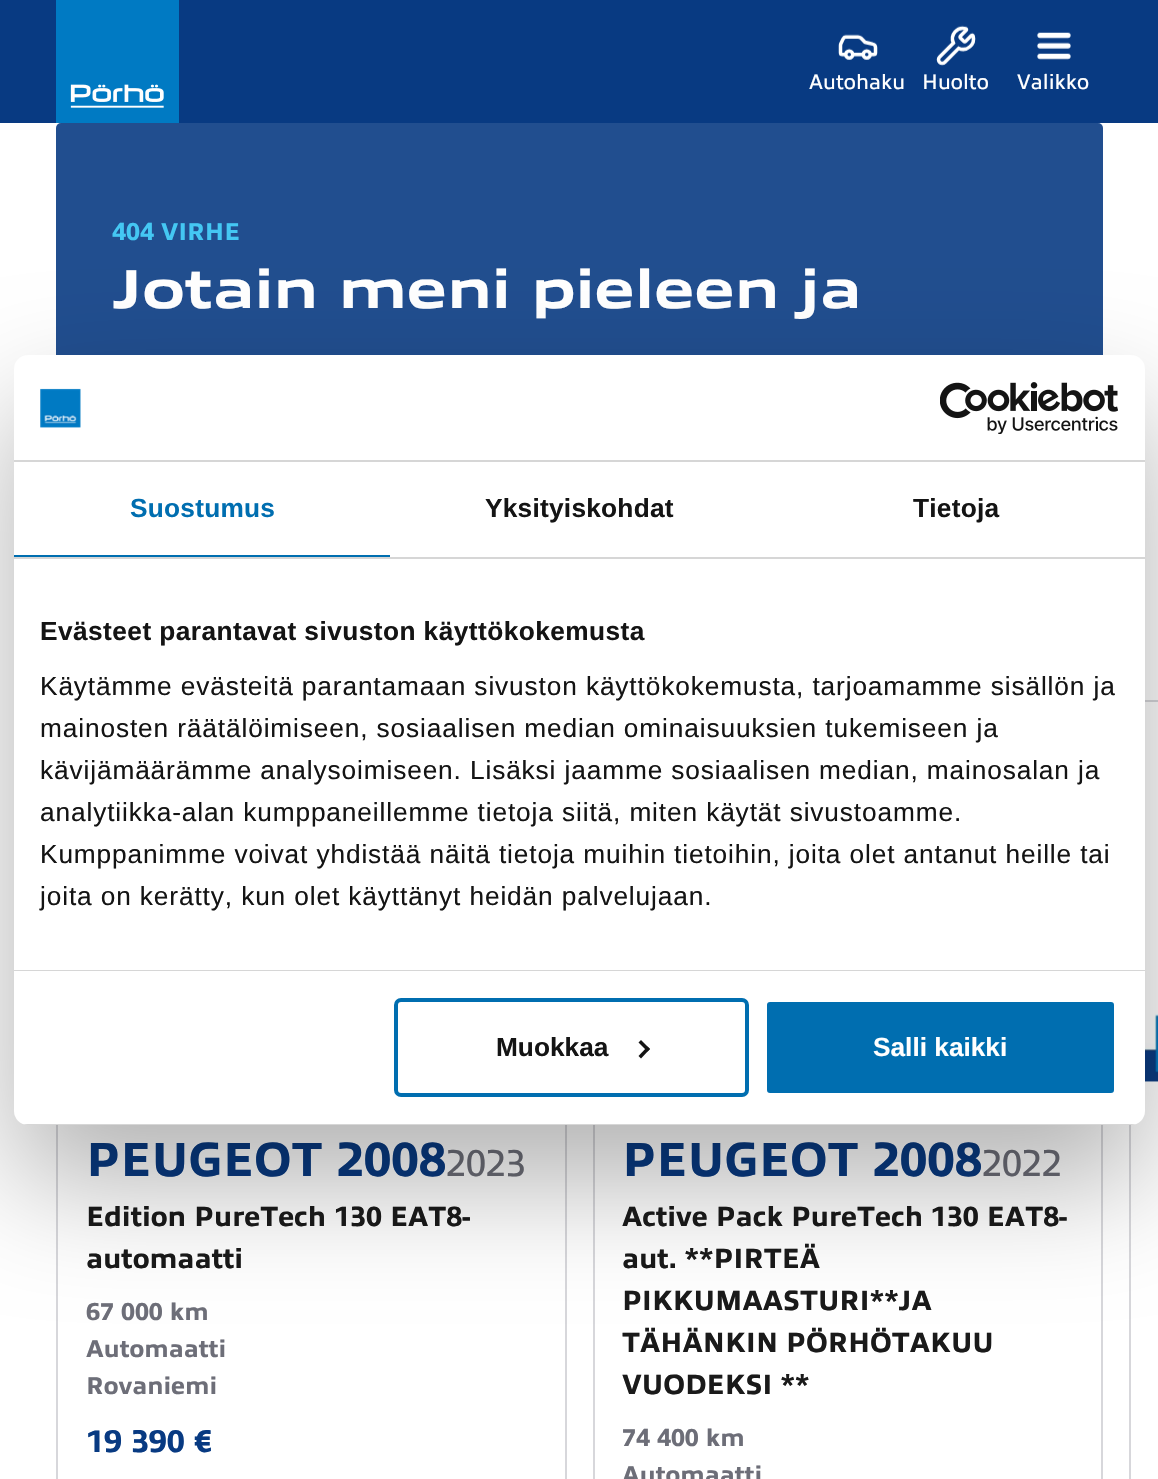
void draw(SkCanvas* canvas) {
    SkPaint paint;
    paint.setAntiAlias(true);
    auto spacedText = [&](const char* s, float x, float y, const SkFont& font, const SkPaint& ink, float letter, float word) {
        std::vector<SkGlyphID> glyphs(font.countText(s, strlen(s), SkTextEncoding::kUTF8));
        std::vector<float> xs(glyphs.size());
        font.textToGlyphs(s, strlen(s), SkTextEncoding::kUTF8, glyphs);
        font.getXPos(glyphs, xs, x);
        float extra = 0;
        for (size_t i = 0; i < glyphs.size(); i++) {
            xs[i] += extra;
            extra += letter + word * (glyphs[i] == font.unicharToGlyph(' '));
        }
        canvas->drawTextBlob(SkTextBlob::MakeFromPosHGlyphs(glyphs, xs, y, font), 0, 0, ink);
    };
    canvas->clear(0xFFFFFFFF);
    paint.setColor(0xFF083A82);
    canvas->drawRect(SkRect::MakeXYWH(0, 0, 1158, 123), paint);
    canvas->drawImageRect(SkImages::DeferredFromEncodedData(SkData::MakeFromFileName("img1.png")), SkRect::MakeXYWH(56, 0, 123, 123), SkSamplingOptions());
    canvas->drawImageRect(SkImages::DeferredFromEncodedData(SkData::MakeFromFileName("img2.png")), SkRect::MakeXYWH(838, 34, 40, 26), SkSamplingOptions());
    SkFont font1(fontMgr->matchFamilyStyle("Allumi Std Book", SkFontStyle::Normal()), 21);
    font1.setSubpixel(true);
    paint.setColor(0xFFFFFFFF);
    canvas->drawString("Autohaku", 809, 89, font1, paint);
    canvas->drawImageRect(SkImages::DeferredFromEncodedData(SkData::MakeFromFileName("img3.png")), SkRect::MakeXYWH(936, 25, 40, 41), SkSamplingOptions());
    canvas->drawString("Huolto", 922, 89, font1, paint);
    canvas->drawImageRect(SkImages::DeferredFromEncodedData(SkData::MakeFromFileName("img4.png")), SkRect::MakeXYWH(1037, 32, 34, 28), SkSamplingOptions());
    canvas->drawString("Valikko", 1017, 89, font1, paint);
    paint.setColor(0xFF214E8F);
    canvas->drawRoundRect(SkRect::MakeXYWH(56, 123, 1047, 453), 5, 5, paint);
    SkFont font2(fontMgr->matchFamilyStyle("Allumi Std Book", SkFontStyle(800, SkFontStyle::kNormal_Width, SkFontStyle::kUpright_Slant)), 24.5f);
    font2.setSubpixel(true);
    paint.setColor(0xFF44C7F3);
    canvas->drawString("404 VIRHE", 112, 240, font2, paint);
    SkFont font3(fontMgr->matchFamilyStyle("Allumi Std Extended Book", SkFontStyle(800, SkFontStyle::kNormal_Width, SkFontStyle::kUpright_Slant)), 55.1f);
    font3.setSubpixel(true);
    paint.setColor(0xFFFFFFFF);
    canvas->drawString("Jotain meni pieleen ja", 112, 308, font3, paint);
    paint.setStyle(SkPaint::kStroke_Style);
    paint.setStrokeWidth(2);
    paint.setColor(0xFFD7D7DB);
    canvas->drawRect(SkRect::MakeXYWH(57, 701, 509, 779), paint);
    SkFont font4(fontMgr->matchFamilyStyle("Allumi Std Book", SkFontStyle(800, SkFontStyle::kNormal_Width, SkFontStyle::kUpright_Slant)), 48.25f);
    font4.setSubpixel(true);
    paint.setStyle(SkPaint::kFill_Style);
    paint.setColor(0xFF083A82);
    canvas->drawString("PEUGEOT 2008", 86, 1176, font4, paint);
    SkFont font5(fontMgr->matchFamilyStyle("Allumi Std Book", SkFontStyle::Normal()), 37.5f);
    font5.setSubpixel(true);
    paint.setColor(0xFF6D6E78);
    canvas->drawString("2023", 446, 1176, font5, paint);
    SkFont font6(fontMgr->matchFamilyStyle("Allumi Std Book", SkFontStyle(800, SkFontStyle::kNormal_Width, SkFontStyle::kUpright_Slant)), 28);
    font6.setSubpixel(true);
    paint.setColor(0xFF1A1A1A);
    canvas->drawString("Edition PureTech 130 EAT8-", 86, 1226, font6, paint);
    canvas->drawString("automaatti", 86, 1268, font6, paint);
    paint.setColor(0xFF6D6E78);
    canvas->drawString("67 000 km", 86, 1320, font2, paint);
    canvas->drawString("Automaatti", 86, 1357, font2, paint);
    canvas->drawString("Rovaniemi", 86, 1394, font2, paint);
    SkFont font7(fontMgr->matchFamilyStyle("Allumi Std Book", SkFontStyle(800, SkFontStyle::kNormal_Width, SkFontStyle::kUpright_Slant)), 31.5f);
    font7.setSubpixel(true);
    paint.setColor(0xFF083A82);
    canvas->drawString("19 390 €", 86, 1452, font7, paint);
    paint.setStyle(SkPaint::kStroke_Style);
    paint.setColor(0xFFD7D7DB);
    canvas->drawRect(SkRect::MakeXYWH(594, 701, 508, 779), paint);
    paint.setStyle(SkPaint::kFill_Style);
    paint.setColor(0xFF083A82);
    canvas->drawString("PEUGEOT 2008", 622, 1176, font4, paint);
    paint.setColor(0xFF6D6E78);
    canvas->drawString("2022", 982, 1176, font5, paint);
    paint.setColor(0xFF1A1A1A);
    canvas->drawString("Active Pack PureTech 130 EAT8-", 622, 1226, font6, paint);
    canvas->drawString("aut. **PIRTEÄ", 622, 1268, font6, paint);
    canvas->drawString("PIKKUMAASTURI**JA", 622, 1310, font6, paint);
    canvas->drawString("TÄHÄNKIN PÖRHÖTAKUU", 622, 1352, font6, paint);
    canvas->drawString("VUODEKSI **", 622, 1394, font6, paint);
    paint.setColor(0xFF6D6E78);
    canvas->drawString("74 400 km", 622, 1446, font2, paint);
    canvas->drawString("Automaatti", 622, 1483, font2, paint);
    paint.setStyle(SkPaint::kStroke_Style);
    paint.setColor(0xFFD7D7DB);
    canvas->drawRect(SkRect::MakeXYWH(1130, 701, 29, 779), paint);
    canvas->drawImageRect(SkImages::DeferredFromEncodedData(SkData::MakeFromFileName("img5.png")), SkRect::MakeXYWH(1145, 702, 13, 380), SkSamplingOptions());
    paint.setStyle(SkPaint::kFill_Style);
    paint.setColor(0x4D000000);
    paint.setMaskFilter(SkMaskFilter::MakeBlur(kNormal_SkBlurStyle, 59.5f));
    canvas->drawRoundRect(SkRect::MakeXYWH(14, 411, 1131, 770), 14, 14, paint);
    paint.setMaskFilter(nullptr);
    paint.setColor(0xFFFFFFFF);
    canvas->drawRoundRect(SkRect::MakeXYWH(14, 355, 1131, 770), 14, 14, paint);
    paint.setColor(0xFFD6D6D6);
    canvas->drawRect(SkRect::MakeXYWH(14, 460, 1131, 2), paint);
    canvas->drawImageRect(SkImages::DeferredFromEncodedData(SkData::MakeFromFileName("img6.png")), SkRect::MakeXYWH(40, 388, 41, 40), SkSamplingOptions());
    canvas->drawImageRect(SkImages::DeferredFromEncodedData(SkData::MakeFromFileName("img7.png")), SkRect::MakeXYWH(940, 382, 178, 52), SkSamplingOptions());
    canvas->drawRect(SkRect::MakeXYWH(14, 557, 1131, 2), paint);
    paint.setColor(0xFF006EB0);
    canvas->drawRect(SkRect::MakeXYWH(14, 555, 376, 2), paint);
    SkFont font8(fontMgr->matchFamilyStyle("Liberation Sans", SkFontStyle::Bold()), 26.25f);
    font8.setSubpixel(true);
    spacedText("Suostumus", 130, 517, font8, paint, 0.25f, 0);
    paint.setColor(0xFF141414);
    spacedText("Yksityiskohdat", 485, 517, font8, paint, 0.25f, 0);
    spacedText("Tietoja", 913, 517, font8, paint, 0.25f, 0);
    paint.setColor(0xFFD6D6D6);
    canvas->drawRect(SkRect::MakeXYWH(14, 970, 1131, 1), paint);
    paint.setColor(0xFF141414);
    spacedText("Evästeet parantavat sivuston käyttökokemusta", 40, 640, font8, paint, 0.45f, 0);
    SkFont font9(fontMgr->matchFamilyStyle("Liberation Sans", SkFontStyle::Normal()), 26.25f);
    font9.setSubpixel(true);
    spacedText("Käytämme evästeitä parantamaan sivuston käyttökokemusta, tarjoamamme sisällön ja", 40, 695, font9, paint, 0.88f, 0);
    spacedText("mainosten räätälöimiseen, sosiaalisen median ominaisuuksien tukemiseen ja", 40, 737, font9, paint, 0.88f, 0);
    spacedText("kävijämäärämme analysoimiseen. Lisäksi jaamme sosiaalisen median, mainosalan ja", 40, 779, font9, paint, 0.88f, 0);
    spacedText("analytiikka-alan kumppaneillemme tietoja siitä, miten käytät sivustoamme.", 40, 821, font9, paint, 0.88f, 0);
    spacedText("Kumppanimme voivat yhdistää näitä tietoja muihin tietoihin, joita olet antanut heille tai", 40, 863, font9, paint, 0.88f, 0);
    spacedText("joita on kerätty, kun olet käyttänyt heidän palvelujaan.", 40, 905, font9, paint, 0.88f, 0);
    canvas->save();
    canvas->clipPath(SkPathBuilder().moveTo(28, 355).lineTo(1131, 355).cubicTo(1138.5f, 355, 1145, 361.5f, 1145, 369).lineTo(1145, 1111).cubicTo(1145, 1118.5f, 1138.5f, 1125, 1131, 1125).lineTo(28, 1125).cubicTo(20.5f, 1125, 14, 1118.5f, 14, 1111).lineTo(14, 369).cubicTo(14, 361.5f, 20.5f, 355, 28, 355).close().detach(), true);
    paint.setColor(0xFFD6D6D6);
    canvas->drawRect(SkRect::MakeXYWH(23, 1124, 1113, 1), paint);
    canvas->restore();
    paint.setStyle(SkPaint::kStroke_Style);
    paint.setStrokeWidth(4);
    paint.setColor(0xFF006EB0);
    canvas->drawRoundRect(SkRect::MakeXYWH(396, 1000, 351, 95), 5, 5, paint);
    paint.setStyle(SkPaint::kFill_Style);
    paint.setColor(0xFF141414);
    canvas->drawString("Muokkaa", 496, 1056, font8, paint);
    canvas->drawPath(SkPathBuilder().moveTo(641, 1040).lineTo(650, 1049).lineTo(647.5f, 1051.5f).lineTo(638.5f, 1042.5f).close().detach(), paint);
    canvas->drawPath(SkPathBuilder().moveTo(647.5f, 1046.5f).lineTo(650, 1049).lineTo(641, 1058.5f).lineTo(638.5f, 1056).close().detach(), paint);
    paint.setColor(0xFF006EB0);
    canvas->drawRoundRect(SkRect::MakeXYWH(765, 1000, 351, 95), 5, 5, paint);
    paint.setStyle(SkPaint::kStroke_Style);
    paint.setColor(0xFFFFFFFF);
    canvas->drawRoundRect(SkRect::MakeXYWH(765, 1000, 351, 95), 5, 5, paint);
    paint.setStyle(SkPaint::kFill_Style);
    canvas->drawString("Salli kaikki", 873, 1056, font8, paint);
}
